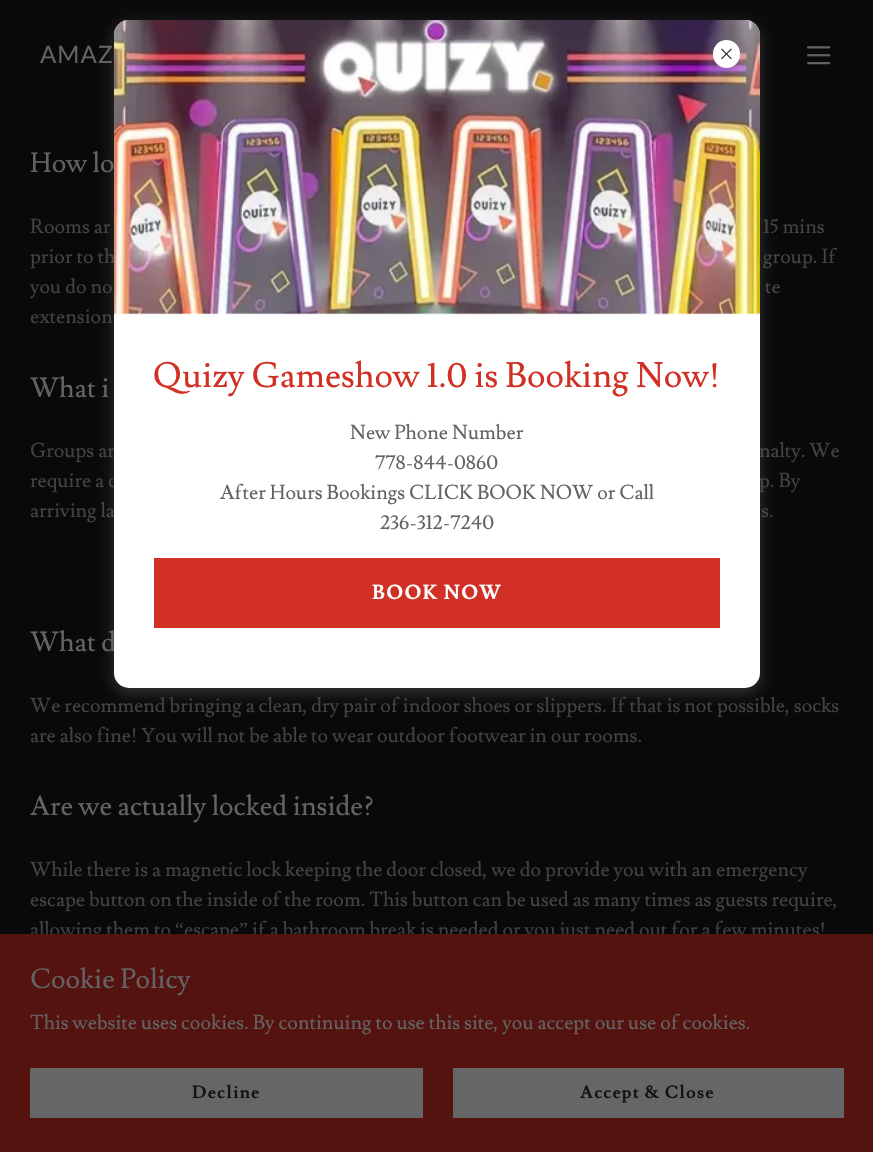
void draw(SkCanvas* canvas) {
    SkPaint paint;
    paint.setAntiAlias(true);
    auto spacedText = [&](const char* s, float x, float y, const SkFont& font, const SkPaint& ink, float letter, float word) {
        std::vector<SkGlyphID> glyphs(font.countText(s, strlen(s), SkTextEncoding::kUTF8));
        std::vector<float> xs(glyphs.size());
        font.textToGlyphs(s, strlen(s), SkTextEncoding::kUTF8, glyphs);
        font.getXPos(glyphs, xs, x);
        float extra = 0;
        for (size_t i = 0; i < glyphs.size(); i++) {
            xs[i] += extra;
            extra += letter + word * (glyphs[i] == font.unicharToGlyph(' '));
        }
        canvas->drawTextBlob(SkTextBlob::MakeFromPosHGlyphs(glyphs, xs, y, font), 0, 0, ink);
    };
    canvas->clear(0xFF090909);
    SkFont font1(fontMgr->matchFamilyStyle("Lato", SkFontStyle::Normal()), 24);
    font1.setSubpixel(true);
    paint.setColor(0xFF636363);
    spacedText("AMAZ", 40, 63, font1, paint, 1, 0);
    canvas->drawImageRect(SkImages::DeferredFromEncodedData(SkData::MakeFromFileName("img1.png")), SkRect::MakeXYWH(807, 46, 24, 19), SkSamplingOptions());
    SkFont font2(fontMgr->matchFamilyStyle("Lusitana", SkFontStyle::Normal()), 27.5f);
    font2.setSubpixel(true);
    canvas->drawString("How lo", 30, 172, font2, paint);
    SkFont font3(fontMgr->matchFamilyStyle("Lusitana", SkFontStyle::Normal()), 20);
    font3.setSubpixel(true);
    paint.setColor(0xFF424242);
    canvas->drawString("Rooms ar", 30, 233, font3, paint);
    canvas->drawString("15 mins", 763, 233, font3, paint);
    canvas->drawString("prior to th", 30, 263, font3, paint);
    canvas->drawString("group. If", 763, 263, font3, paint);
    canvas->drawString("you do no", 30, 293, font3, paint);
    canvas->drawString("te", 765, 293, font3, paint);
    canvas->drawString("extension", 30, 323, font3, paint);
    paint.setColor(0xFF636363);
    canvas->drawString("What i", 30, 397, font2, paint);
    paint.setColor(0xFF424242);
    canvas->drawString("Groups ar", 30, 457, font3, paint);
    canvas->drawString("nalty. We", 759, 457, font3, paint);
    canvas->drawString("require a c", 30, 487, font3, paint);
    canvas->drawString("p. By", 759, 487, font3, paint);
    canvas->drawString("arriving la", 30, 517, font3, paint);
    canvas->drawString("s.", 761, 517, font3, paint);
    paint.setColor(0x66757575);
    paint.setMaskFilter(SkMaskFilter::MakeBlur(kNormal_SkBlurStyle, 7.5f));
    canvas->drawRoundRect(SkRect::MakeXYWH(114, 25, 646, 668), 15, 15, paint);
    paint.setMaskFilter(nullptr);
    paint.setColor(0xFF636363);
    canvas->drawString("What d", 30, 651, font2, paint);
    paint.setColor(0xFFFFFFFF);
    canvas->drawRoundRect(SkRect::MakeXYWH(114, 20, 646, 668), 15, 15, paint);
    canvas->drawImageRect(SkImages::DeferredFromEncodedData(SkData::MakeFromFileName("img3.png")), SkRect::MakeXYWH(114, 20, 646, 295), SkSamplingOptions());
    canvas->drawRoundRect(SkRect::MakeXYWH(713, 40, 27, 28), 13.5f, 13.5f, paint);
    canvas->drawImageRect(SkImages::DeferredFromEncodedData(SkData::MakeFromFileName("img2.png")), SkRect::MakeXYWH(721, 48, 11, 12), SkSamplingOptions());
    SkFont font4(fontMgr->matchFamilyStyle("Lusitana", SkFontStyle::Normal()), 35);
    font4.setSubpixel(true);
    paint.setColor(0xFFD22F25);
    canvas->drawString("Quizy Gameshow 1.0 is Booking Now!", 153, 387, font4, paint);
    paint.setColor(0xFF636363);
    canvas->drawString("New Phone Number", 350, 439, font3, paint);
    canvas->drawString("778-844-0860", 375, 469, font3, paint);
    canvas->drawString("After Hours Bookings CLICK BOOK NOW or Call", 220, 499, font3, paint);
    canvas->drawString("236-312-7240", 380, 529, font3, paint);
    paint.setColor(0xFFD22F25);
    canvas->drawRect(SkRect::MakeXYWH(154, 558, 566, 70), paint);
    SkFont font5(fontMgr->matchFamilyStyle("Lusitana", SkFontStyle::Bold()), 20);
    font5.setSubpixel(true);
    paint.setColor(0xFFFFFFFF);
    spacedText("BOOK NOW", 372, 599, font5, paint, 1.25f, 0);
    paint.setColor(0xFF424242);
    canvas->drawString("We recommend bringing a clean, dry pair of indoor shoes or slippers. If that is not possible, socks", 30, 712, font3, paint);
    canvas->drawString("are also fine! You will not be able to wear outdoor footwear in our rooms.", 30, 742, font3, paint);
    paint.setColor(0xFF636363);
    canvas->drawString("Are we actually locked inside?", 30, 815, font2, paint);
    paint.setColor(0xFF424242);
    canvas->drawString("While there is a magnetic lock keeping the door closed, we do provide you with an emergency", 30, 876, font3, paint);
    canvas->drawString("escape button on the inside of the room. This button can be used as many times as guests require,", 30, 906, font3, paint);
    canvas->drawString("allowing them to", 30, 936, font3, paint);
    SkFont font6(fontMgr->matchFamilyStyle("Liberation Serif", SkFontStyle::Normal()), 20);
    font6.setSubpixel(true);
    canvas->drawString("“", 175, 936, font6, paint);
    canvas->drawString("”", 239, 936, font6, paint);
    canvas->drawString("if a bathroom break is needed or you just need out for a few minutes!", 252, 936, font3, paint);
    canvas->drawString("escape", 184, 936, font3, paint);
    paint.setColor(0x4D000000);
    paint.setMaskFilter(SkMaskFilter::MakeBlur(kNormal_SkBlurStyle, 4));
    canvas->drawRect(SkRect::MakeXYWH(0, 936, 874, 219), paint);
    paint.setMaskFilter(nullptr);
    paint.setColor(0xFF54130F);
    canvas->drawRect(SkRect::MakeXYWH(0, 934, 873, 218), paint);
    paint.setColor(0xFF636363);
    canvas->drawString("Cookie Policy", 30, 988, font2, paint);
    canvas->drawString("This website uses cookies. By continuing to use this site, you accept our use of cookies.", 30, 1029, font3, paint);
    paint.setColor(0xFF666666);
    canvas->drawRect(SkRect::MakeXYWH(30, 1068, 393, 50), paint);
    SkFont font7(fontMgr->matchFamilyStyle("Lusitana", SkFontStyle::Bold()), 17.5f);
    font7.setSubpixel(true);
    paint.setColor(0xFF131313);
    spacedText("Decline", 192, 1098, font7, paint, 1.1f, 0);
    paint.setColor(0xFF666666);
    canvas->drawRect(SkRect::MakeXYWH(453, 1068, 391, 50), paint);
    paint.setColor(0xFF131313);
    spacedText("Accept & Close", 580, 1098, font7, paint, 1.1f, 0);
}
